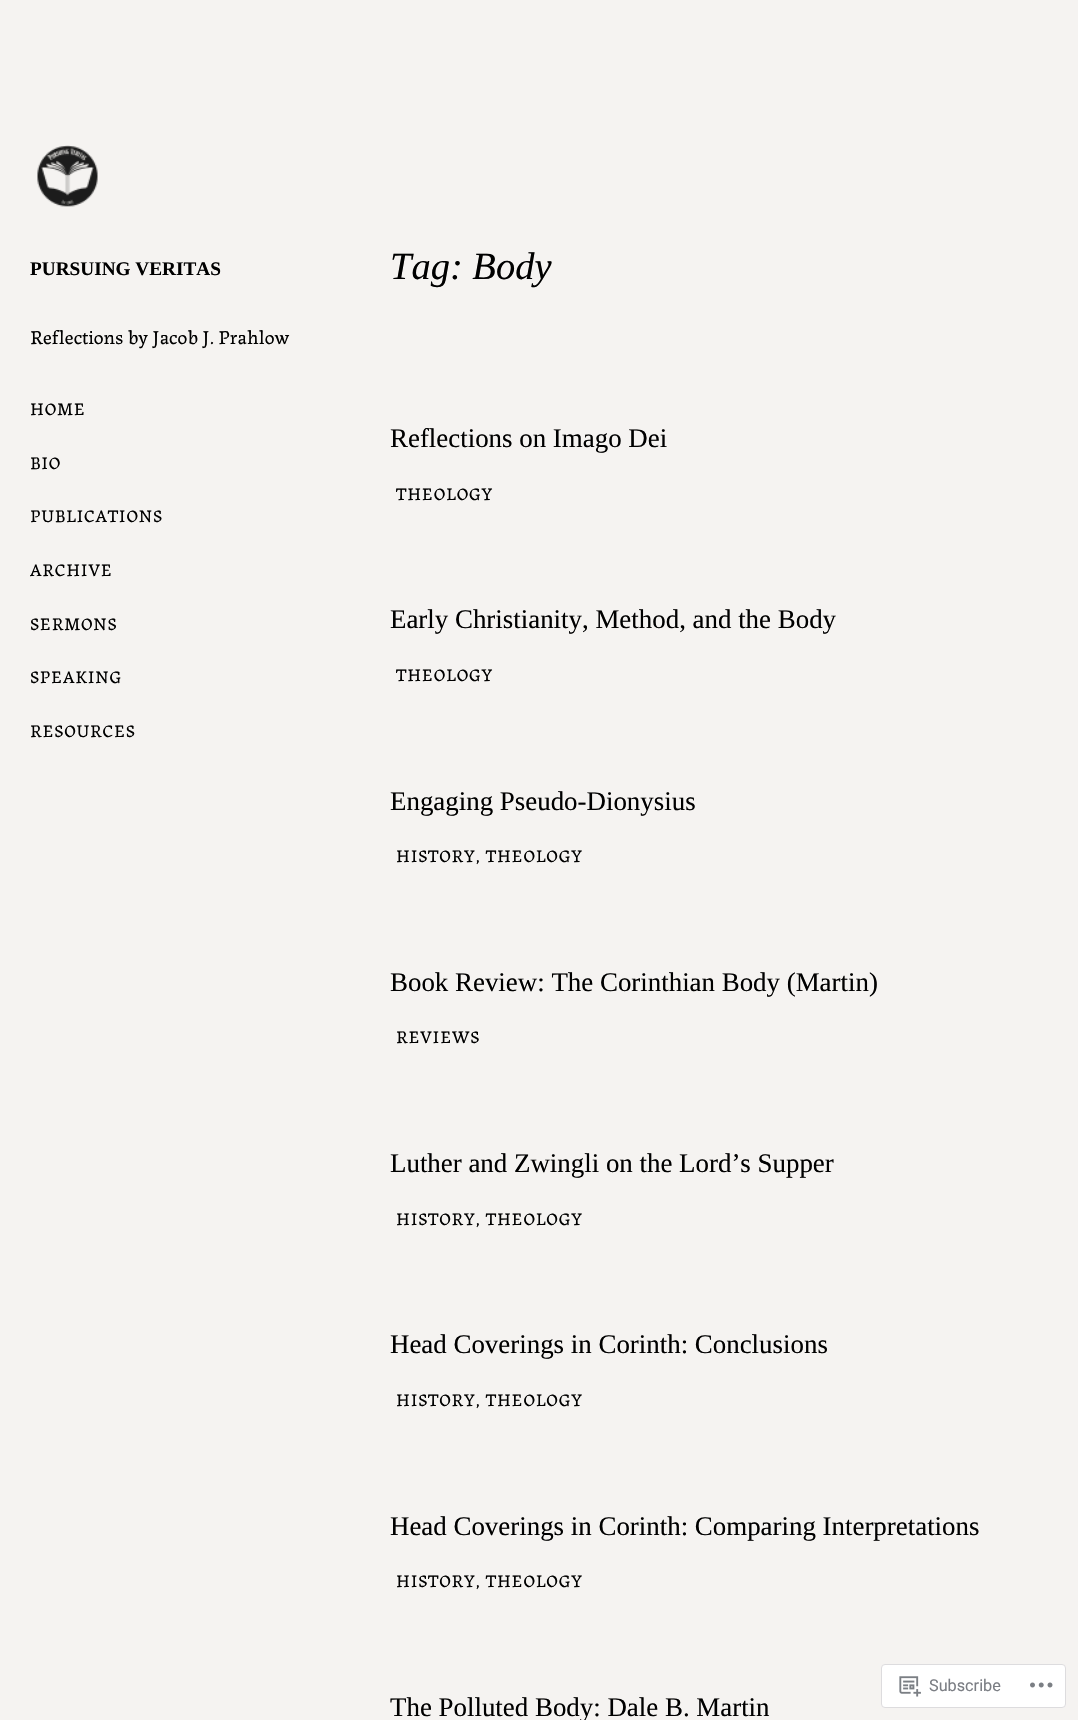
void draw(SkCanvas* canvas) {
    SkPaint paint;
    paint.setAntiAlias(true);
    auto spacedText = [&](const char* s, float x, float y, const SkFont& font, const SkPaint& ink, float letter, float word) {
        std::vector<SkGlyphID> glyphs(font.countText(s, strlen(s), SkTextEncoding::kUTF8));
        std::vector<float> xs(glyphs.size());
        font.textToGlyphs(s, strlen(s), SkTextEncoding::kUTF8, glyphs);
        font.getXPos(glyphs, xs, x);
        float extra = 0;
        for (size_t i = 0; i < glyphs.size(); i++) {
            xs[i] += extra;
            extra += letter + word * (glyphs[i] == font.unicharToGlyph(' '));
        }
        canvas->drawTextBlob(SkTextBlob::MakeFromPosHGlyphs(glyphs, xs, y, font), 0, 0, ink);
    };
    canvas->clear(0xFFF5F3F1);
    canvas->drawImageRect(SkImages::DeferredFromEncodedData(SkData::MakeFromFileName("img1.png")), SkRect::MakeXYWH(37, 145, 61, 62), SkSamplingOptions());
    SkFont font1(fontMgr->matchFamilyStyle("Liberation Serif", SkFontStyle::Bold()), 19.25f);
    font1.setSubpixel(true);
    paint.setColor(0xFF000000);
    canvas->drawString("PURSUING VERITAS", 30, 275, font1, paint);
    SkFont font2(fontMgr->matchFamilyStyle("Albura", SkFontStyle::Normal()), 19.75f);
    font2.setSubpixel(true);
    canvas->drawString("Reflections by Jacob J. Prahlow", 30, 344, font2, paint);
    SkFont font3(fontMgr->matchFamilyStyle("Albura", SkFontStyle::Normal()), 17.8f);
    font3.setSubpixel(true);
    spacedText("HOME", 30, 415, font3, paint, 0.75f, 0);
    spacedText("BIO", 30, 469, font3, paint, 0.75f, 0);
    spacedText("PUBLICATIONS", 30, 522, font3, paint, 0.75f, 0);
    spacedText("ARCHIVE", 30, 576, font3, paint, 0.75f, 0);
    spacedText("SERMONS", 30, 630, font3, paint, 0.75f, 0);
    spacedText("SPEAKING", 30, 683, font3, paint, 0.75f, 0);
    spacedText("RESOURCES", 30, 737, font3, paint, 0.75f, 0);
    SkFont font4(fontMgr->matchFamilyStyle("Liberation Serif", SkFontStyle::Italic()), 38.5f);
    font4.setSubpixel(true);
    canvas->drawString("Tag: Body", 390, 279, font4, paint);
    SkFont font5(fontMgr->matchFamilyStyle("Liberation Serif", SkFontStyle::Normal()), 26.9f);
    font5.setSubpixel(true);
    canvas->drawString("Reflections on Imago Dei", 390, 447, font5, paint);
    spacedText("THEOLOGY", 396, 500, font3, paint, 0.75f, 0);
    canvas->drawString("Early Christianity, Method, and the Body", 390, 628, font5, paint);
    spacedText("THEOLOGY", 396, 681, font3, paint, 0.75f, 0);
    canvas->drawString("Engaging Pseudo-Dionysius", 390, 810, font5, paint);
    spacedText("HISTORY, THEOLOGY", 396, 862, font3, paint, 0.75f, 0);
    canvas->drawString("Book Review: The Corinthian Body (Martin)", 390, 991, font5, paint);
    spacedText("REVIEWS", 396, 1043, font3, paint, 0.75f, 0);
    canvas->drawString("Luther and Zwingli on the Lord’s Supper", 390, 1172, font5, paint);
    spacedText("HISTORY, THEOLOGY", 396, 1225, font3, paint, 0.75f, 0);
    canvas->drawString("Head Coverings in Corinth: Conclusions", 390, 1353, font5, paint);
    spacedText("HISTORY, THEOLOGY", 396, 1406, font3, paint, 0.75f, 0);
    canvas->drawString("Head Coverings in Corinth: Comparing Interpretations", 390, 1535, font5, paint);
    spacedText("HISTORY, THEOLOGY", 396, 1587, font3, paint, 0.75f, 0);
    canvas->drawString("The Polluted Body: Dale B. Martin", 390, 1716, font5, paint);
    paint.setColor(0xFFFFFFFF);
    canvas->drawRoundRect(SkRect::MakeXYWH(881.5f, 1664.5f, 184, 43), 3.5f, 3.5f, paint);
    paint.setStyle(SkPaint::kStroke_Style);
    paint.setStrokeWidth(1);
    paint.setColor(0xFFDDDCDE);
    canvas->drawRoundRect(SkRect::MakeXYWH(881.5f, 1664.5f, 184, 43), 3.5f, 3.5f, paint);
    canvas->drawImageRect(SkImages::DeferredFromEncodedData(SkData::MakeFromFileName("img2.png")), SkRect::MakeXYWH(899, 1676, 22, 21), SkSamplingOptions());
    SkFont font6(fontMgr->matchFamilyStyle("Roboto", SkFontStyle::Normal()), 16.25f);
    font6.setSubpixel(true);
    paint.setStyle(SkPaint::kFill_Style);
    paint.setColor(0xFF7B7E84);
    canvas->drawString("Subscribe", 929, 1691, font6, paint);
    canvas->drawImageRect(SkImages::DeferredFromEncodedData(SkData::MakeFromFileName("img3.png")), SkRect::MakeXYWH(1030, 1682, 23, 6), SkSamplingOptions());
}
